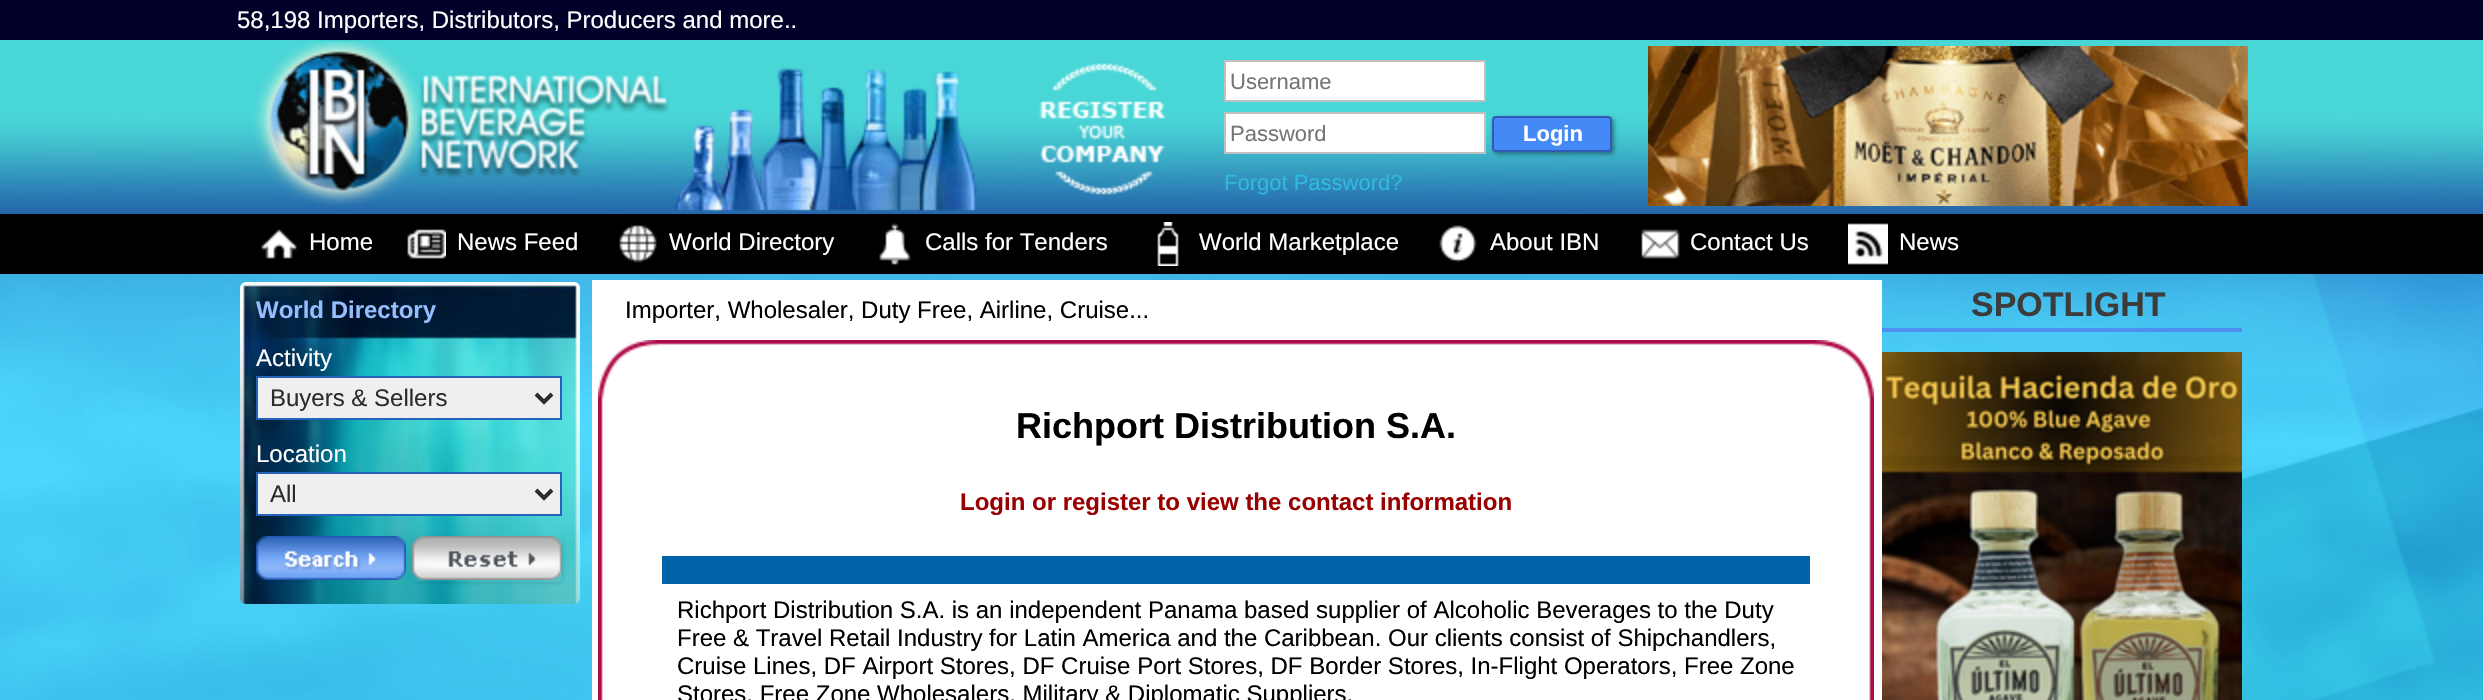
void draw(SkCanvas* canvas) {
    SkPaint paint;
    paint.setAntiAlias(true);
    canvas->clear(0xFFFFFFFF);
    canvas->drawImageRect(SkImages::DeferredFromEncodedData(SkData::MakeFromFileName("img1.png")), SkRect::MakeXYWH(0, 274, 2483, 426), SkSamplingOptions());
    paint.setColor(0xFF000028);
    canvas->drawRect(SkRect::MakeXYWH(0, 0, 2483, 40), paint);
    SkFont font1(fontMgr->matchFamilyStyle("Liberation Sans", SkFontStyle::Normal()), 24);
    font1.setSubpixel(true);
    paint.setColor(0xFFFFFFFF);
    canvas->drawString("58,198 Importers, Distributors, Producers and more..", 237, 28, font1, paint);
    canvas->drawImageRect(SkImages::DeferredFromEncodedData(SkData::MakeFromFileName("img2.png")), SkRect::MakeXYWH(0, 40, 2483, 174), SkSamplingOptions());
    canvas->drawImageRect(SkImages::DeferredFromEncodedData(SkData::MakeFromFileName("img3.png")), SkRect::MakeXYWH(674, 67, 303, 144), SkSamplingOptions());
    canvas->drawImageRect(SkImages::DeferredFromEncodedData(SkData::MakeFromFileName("img4.png")), SkRect::MakeXYWH(254, 42, 415, 164), SkSamplingOptions());
    canvas->drawImageRect(SkImages::DeferredFromEncodedData(SkData::MakeFromFileName("img5.png")), SkRect::MakeXYWH(1039, 63, 128, 132), SkSamplingOptions());
    canvas->drawRect(SkRect::MakeXYWH(1225, 61, 260, 40), paint);
    paint.setStyle(SkPaint::kStroke_Style);
    paint.setStrokeWidth(2);
    paint.setColor(0xFFC0C0C0);
    canvas->drawRect(SkRect::MakeXYWH(1225, 61, 260, 40), paint);
    SkFont font2(fontMgr->matchFamilyStyle("Liberation Sans", SkFontStyle::Normal()), 22);
    font2.setSubpixel(true);
    paint.setStyle(SkPaint::kFill_Style);
    paint.setColor(0xFF757575);
    canvas->drawString("Username", 1230, 89, font2, paint);
    paint.setColor(0xFFFFFFFF);
    canvas->drawRect(SkRect::MakeXYWH(1225, 113, 260, 40), paint);
    paint.setStyle(SkPaint::kStroke_Style);
    paint.setColor(0xFFC0C0C0);
    canvas->drawRect(SkRect::MakeXYWH(1225, 113, 260, 40), paint);
    paint.setStyle(SkPaint::kFill_Style);
    paint.setColor(0xFF757575);
    canvas->drawString("Password", 1230, 141, font2, paint);
    paint.setColor(0x66000000);
    paint.setMaskFilter(SkMaskFilter::MakeBlur(kNormal_SkBlurStyle, 2));
    canvas->drawRoundRect(SkRect::MakeXYWH(1494, 118, 120, 36), 4, 4, paint);
    paint.setMaskFilter(nullptr);
    paint.setColor(0xFF4589F7);
    canvas->drawRoundRect(SkRect::MakeXYWH(1493, 117, 118, 34), 3, 3, paint);
    paint.setStyle(SkPaint::kStroke_Style);
    paint.setColor(0xFF2F5BB7);
    canvas->drawRoundRect(SkRect::MakeXYWH(1493, 117, 118, 34), 3, 3, paint);
    SkFont font3(fontMgr->matchFamilyStyle("Liberation Sans", SkFontStyle::Bold()), 22);
    font3.setSubpixel(true);
    paint.setStyle(SkPaint::kFill_Style);
    paint.setColor(0xFFFFFFFF);
    canvas->drawString("Login", 1523, 141, font3, paint);
    paint.setColor(0xFF31B9DF);
    canvas->drawString("Forgot Password?", 1224, 190, font2, paint);
    canvas->drawImageRect(SkImages::DeferredFromEncodedData(SkData::MakeFromFileName("img6.png")), SkRect::MakeXYWH(1648, 46, 600, 160), SkSamplingOptions());
    paint.setColor(0xFF000000);
    canvas->drawRect(SkRect::MakeXYWH(0, 214, 2483, 60), paint);
    canvas->drawImageRect(SkImages::DeferredFromEncodedData(SkData::MakeFromFileName("img7.png")), SkRect::MakeXYWH(261, 229, 36, 30), SkSamplingOptions());
    paint.setColor(0xFFFFFFFF);
    canvas->drawString("Home", 309, 250, font1, paint);
    canvas->drawImageRect(SkImages::DeferredFromEncodedData(SkData::MakeFromFileName("img8.png")), SkRect::MakeXYWH(407, 229, 39, 30), SkSamplingOptions());
    canvas->drawString("News Feed", 457, 250, font1, paint);
    canvas->drawImageRect(SkImages::DeferredFromEncodedData(SkData::MakeFromFileName("img9.png")), SkRect::MakeXYWH(619, 225, 38, 38), SkSamplingOptions());
    canvas->drawString("World Directory", 669, 250, font1, paint);
    canvas->drawImageRect(SkImages::DeferredFromEncodedData(SkData::MakeFromFileName("img10.png")), SkRect::MakeXYWH(879, 223, 32, 43), SkSamplingOptions());
    canvas->drawString("Calls for Tenders", 925, 250, font1, paint);
    canvas->drawImageRect(SkImages::DeferredFromEncodedData(SkData::MakeFromFileName("img11.png")), SkRect::MakeXYWH(1157, 222, 22, 44), SkSamplingOptions());
    canvas->drawString("World Marketplace", 1199, 250, font1, paint);
    canvas->drawImageRect(SkImages::DeferredFromEncodedData(SkData::MakeFromFileName("img12.png")), SkRect::MakeXYWH(1439, 225, 38, 38), SkSamplingOptions());
    canvas->drawString("About IBN", 1490, 250, font1, paint);
    canvas->drawImageRect(SkImages::DeferredFromEncodedData(SkData::MakeFromFileName("img13.png")), SkRect::MakeXYWH(1641, 229, 39, 30), SkSamplingOptions());
    canvas->drawString("Contact Us", 1690, 250, font1, paint);
    canvas->drawImageRect(SkImages::DeferredFromEncodedData(SkData::MakeFromFileName("img14.png")), SkRect::MakeXYWH(1848, 223, 40, 42), SkSamplingOptions());
    canvas->drawString("News", 1899, 250, font1, paint);
    canvas->drawImageRect(SkImages::DeferredFromEncodedData(SkData::MakeFromFileName("img15.png")), SkRect::MakeXYWH(240, 282, 340, 322), SkSamplingOptions());
    SkFont font4(fontMgr->matchFamilyStyle("Liberation Sans", SkFontStyle::Bold()), 24);
    font4.setSubpixel(true);
    paint.setColor(0xFF95BEFF);
    canvas->drawString("World Directory", 256, 318, font4, paint);
    paint.setColor(0xFFFFFFFF);
    canvas->drawString("Activity", 256, 366, font1, paint);
    paint.setColor(0xFFEFEFEF);
    canvas->drawRect(SkRect::MakeXYWH(257, 377, 304, 42), paint);
    paint.setStyle(SkPaint::kStroke_Style);
    paint.setColor(0xFF2662BA);
    canvas->drawRect(SkRect::MakeXYWH(257, 377, 304, 42), paint);
    paint.setStrokeWidth(4);
    paint.setColor(0xFF2C2C2C);
    canvas->drawPath(SkPathBuilder().moveTo(536, 394).lineTo(544, 402).lineTo(552, 394).detach(), paint);
    paint.setStyle(SkPaint::kFill_Style);
    canvas->drawString("Buyers & Sellers", 270, 406, font1, paint);
    paint.setColor(0xFFFFFFFF);
    canvas->drawString("Location", 256, 462, font1, paint);
    paint.setColor(0xFFEFEFEF);
    canvas->drawRect(SkRect::MakeXYWH(257, 473, 304, 42), paint);
    paint.setStyle(SkPaint::kStroke_Style);
    paint.setStrokeWidth(2);
    paint.setColor(0xFF2662BA);
    canvas->drawRect(SkRect::MakeXYWH(257, 473, 304, 42), paint);
    paint.setStrokeWidth(4);
    paint.setColor(0xFF2C2C2C);
    canvas->drawPath(SkPathBuilder().moveTo(536, 490).lineTo(544, 498).lineTo(552, 490).detach(), paint);
    paint.setStyle(SkPaint::kFill_Style);
    canvas->drawString("All", 270, 502, font1, paint);
    canvas->drawImageRect(SkImages::DeferredFromEncodedData(SkData::MakeFromFileName("img16.png")), SkRect::MakeXYWH(256, 536, 150, 44), SkSamplingOptions());
    canvas->save();
    canvas->clipPath(SkPathBuilder(SkPathFillType::kEvenOdd).moveTo(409, 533).lineTo(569, 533).lineTo(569, 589).lineTo(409, 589).close().moveTo(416, 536).lineTo(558, 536).cubicTo(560, 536, 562, 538, 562, 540).lineTo(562, 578).cubicTo(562, 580, 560, 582, 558, 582).lineTo(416, 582).cubicTo(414, 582, 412, 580, 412, 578).lineTo(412, 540).cubicTo(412, 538, 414, 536, 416, 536).close().detach(), true);
    paint.setColor(0x33000000);
    paint.setMaskFilter(SkMaskFilter::MakeBlur(kNormal_SkBlurStyle, 2));
    canvas->drawRoundRect(SkRect::MakeXYWH(416, 540, 146, 42), 2, 2, paint);
    paint.setMaskFilter(nullptr);
    canvas->restore();
    canvas->drawImageRect(SkImages::DeferredFromEncodedData(SkData::MakeFromFileName("img17.png")), SkRect::MakeXYWH(412, 536, 150, 44), SkSamplingOptions());
    paint.setColor(0xFFFFFFFF);
    canvas->drawRect(SkRect::MakeXYWH(592, 280, 1290, 420), paint);
    paint.setColor(0xFF000000);
    canvas->drawString("Importer, Wholesaler, Duty Free, Airline, Cruise...", 625, 318, font1, paint);
    canvas->drawImageRect(SkImages::DeferredFromEncodedData(SkData::MakeFromFileName("img18.png")), SkRect::MakeXYWH(598, 340, 60, 58), SkSamplingOptions());
    canvas->drawImageRect(SkImages::DeferredFromEncodedData(SkData::MakeFromFileName("img19.png")), SkRect::MakeXYWH(658, 340, 1156, 5), SkSamplingOptions());
    canvas->drawImageRect(SkImages::DeferredFromEncodedData(SkData::MakeFromFileName("img20.png")), SkRect::MakeXYWH(1814, 340, 60, 58), SkSamplingOptions());
    canvas->drawImageRect(SkImages::DeferredFromEncodedData(SkData::MakeFromFileName("img21.png")), SkRect::MakeXYWH(598, 398, 5, 302), SkSamplingOptions());
    SkFont font5(fontMgr->matchFamilyStyle("Liberation Sans", SkFontStyle::Bold()), 36);
    font5.setSubpixel(true);
    canvas->drawString("Richport Distribution S.A.", 1016, 438, font5, paint);
    paint.setColor(0xFF990000);
    canvas->drawString("Login or register to view the contact information", 960, 510, font4, paint);
    paint.setColor(0xFF0063AA);
    canvas->drawRect(SkRect::MakeXYWH(662, 556, 1148, 28), paint);
    paint.setColor(0xFF000000);
    canvas->drawString("Richport Distribution S.A. is an independent Panama based supplier of Alcoholic Beverages to the Duty", 677, 618, font1, paint);
    canvas->drawString("Free & Travel Retail Industry for Latin America and the Caribbean. Our clients consist of Shipchandlers,", 677, 646, font1, paint);
    canvas->drawString("Cruise Lines, DF Airport Stores, DF Cruise Port Stores, DF Border Stores, In-Flight Operators, Free Zone", 677, 674, font1, paint);
    canvas->drawString("Stores, Free Zone Wholesalers, Military & Diplomatic Suppliers.", 677, 702, font1, paint);
    canvas->drawImageRect(SkImages::DeferredFromEncodedData(SkData::MakeFromFileName("img22.png")), SkRect::MakeXYWH(1869, 398, 5, 302), SkSamplingOptions());
    paint.setColor(0xFF4E90F0);
    canvas->drawRect(SkRect::MakeXYWH(1882, 328, 360, 4), paint);
    SkFont font6(fontMgr->matchFamilyStyle("Liberation Sans", SkFontStyle::Bold()), 34);
    font6.setSubpixel(true);
    paint.setColor(0xFF3C3C3C);
    canvas->drawString("SPOTLIGHT", 1971, 316, font6, paint);
    canvas->drawImageRect(SkImages::DeferredFromEncodedData(SkData::MakeFromFileName("img23.png")), SkRect::MakeXYWH(1882, 352, 360, 348), SkSamplingOptions());
}
